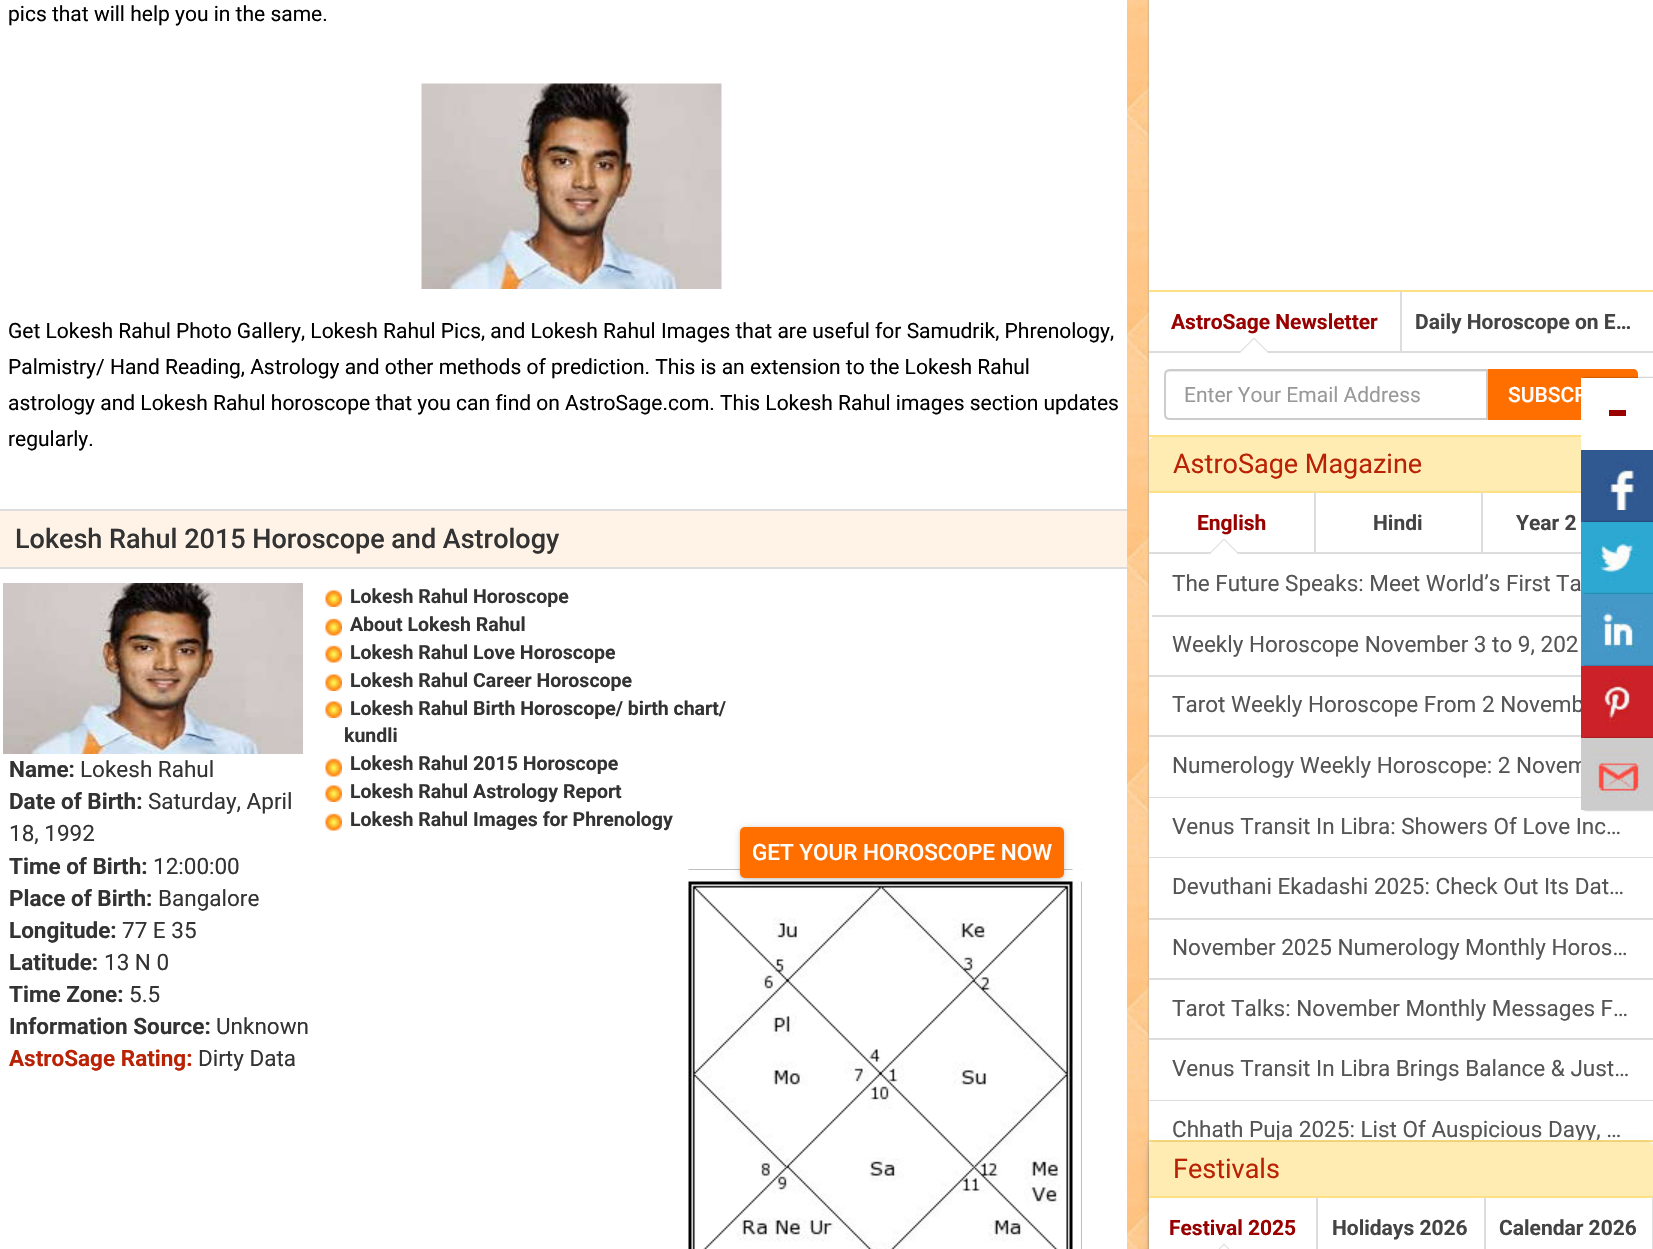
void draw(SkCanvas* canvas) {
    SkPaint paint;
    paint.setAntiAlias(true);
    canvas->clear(0xFFFFFFFF);
    canvas->drawImageRect(SkImages::DeferredFromEncodedData(SkData::MakeFromFileName("img1.png")), SkRect::MakeXYWH(1127, 0, 22, 1249), SkSamplingOptions());
    SkFont font1(fontMgr->matchFamilyStyle("Roboto", SkFontStyle::Normal()), 21);
    font1.setSubpixel(true);
    paint.setColor(0xFF000000);
    canvas->drawString("pics that will help you in the same.", 8, 21, font1, paint);
    canvas->drawImageRect(SkImages::DeferredFromEncodedData(SkData::MakeFromFileName("img2.png")), SkRect::MakeXYWH(421, 83, 301, 206), SkSamplingOptions());
    canvas->drawString("Get Lokesh Rahul Photo Gallery, Lokesh Rahul Pics, and Lokesh Rahul Images that are useful for Samudrik, Phrenology,", 8, 338, font1, paint);
    canvas->drawString("Palmistry/ Hand Reading, Astrology and other methods of prediction. This is an extension to the Lokesh Rahul", 8, 374, font1, paint);
    canvas->drawString("astrology and Lokesh Rahul horoscope that you can find on AstroSage.com. This Lokesh Rahul images section updates", 8, 410, font1, paint);
    canvas->drawString("regularly.", 8, 446, font1, paint);
    paint.setColor(0xFFFFF3E7);
    canvas->drawRect(SkRect::MakeXYWH(0, 511, 1127, 56), paint);
    paint.setColor(0xFFDDDDDD);
    canvas->drawRect(SkRect::MakeXYWH(0, 509, 1127, 2), paint);
    canvas->drawRect(SkRect::MakeXYWH(0, 567, 1127, 2), paint);
    SkFont font2(fontMgr->matchFamilyStyle("Roboto", SkFontStyle(500, SkFontStyle::kNormal_Width, SkFontStyle::kUpright_Slant)), 27);
    font2.setSubpixel(true);
    paint.setColor(0xFF333333);
    canvas->drawString("Lokesh Rahul 2015 Horoscope and Astrology", 15, 548, font2, paint);
    canvas->drawImageRect(SkImages::DeferredFromEncodedData(SkData::MakeFromFileName("img3.png")), SkRect::MakeXYWH(325, 590, 17, 17), SkSamplingOptions());
    SkFont font3(fontMgr->matchFamilyStyle("Roboto", SkFontStyle::Bold()), 19.5f);
    font3.setSubpixel(true);
    canvas->drawString("Lokesh Rahul Horoscope", 350, 603, font3, paint);
    canvas->drawImageRect(SkImages::DeferredFromEncodedData(SkData::MakeFromFileName("img4.png")), SkRect::MakeXYWH(325, 618, 17, 18), SkSamplingOptions());
    canvas->drawString("About Lokesh Rahul", 350, 631, font3, paint);
    canvas->drawImageRect(SkImages::DeferredFromEncodedData(SkData::MakeFromFileName("img4.png")), SkRect::MakeXYWH(325, 645, 17, 18), SkSamplingOptions());
    canvas->drawString("Lokesh Rahul Love Horoscope", 350, 659, font3, paint);
    canvas->drawImageRect(SkImages::DeferredFromEncodedData(SkData::MakeFromFileName("img3.png")), SkRect::MakeXYWH(325, 674, 17, 17), SkSamplingOptions());
    canvas->drawString("Lokesh Rahul Career Horoscope", 350, 687, font3, paint);
    canvas->drawImageRect(SkImages::DeferredFromEncodedData(SkData::MakeFromFileName("img3.png")), SkRect::MakeXYWH(325, 701, 17, 17), SkSamplingOptions());
    canvas->drawString("Lokesh Rahul Birth Horoscope/ birth chart/", 350, 715, font3, paint);
    canvas->drawString("kundli", 344, 742, font3, paint);
    canvas->drawImageRect(SkImages::DeferredFromEncodedData(SkData::MakeFromFileName("img5.png")), SkRect::MakeXYWH(325, 758, 17, 19), SkSamplingOptions());
    canvas->drawString("Lokesh Rahul 2015 Horoscope", 350, 770, font3, paint);
    canvas->drawImageRect(SkImages::DeferredFromEncodedData(SkData::MakeFromFileName("img3.png")), SkRect::MakeXYWH(325, 785, 17, 17), SkSamplingOptions());
    canvas->drawString("Lokesh Rahul Astrology Report", 350, 798, font3, paint);
    canvas->drawImageRect(SkImages::DeferredFromEncodedData(SkData::MakeFromFileName("img4.png")), SkRect::MakeXYWH(325, 813, 17, 18), SkSamplingOptions());
    canvas->drawString("Lokesh Rahul Images for Phrenology", 350, 826, font3, paint);
    canvas->drawImageRect(SkImages::DeferredFromEncodedData(SkData::MakeFromFileName("img6.png")), SkRect::MakeXYWH(3, 583, 300, 171), SkSamplingOptions());
    SkFont font4(fontMgr->matchFamilyStyle("Roboto", SkFontStyle::Bold()), 22.5f);
    font4.setSubpixel(true);
    canvas->drawString("Name:", 9, 777, font4, paint);
    SkFont font5(fontMgr->matchFamilyStyle("Roboto", SkFontStyle::Normal()), 22.5f);
    font5.setSubpixel(true);
    canvas->drawString("Lokesh Rahul", 80, 777, font5, paint);
    canvas->drawString("Date of Birth:", 9, 809, font4, paint);
    canvas->drawString("Saturday, April", 148, 809, font5, paint);
    canvas->drawString("18, 1992", 9, 841, font5, paint);
    canvas->drawString("Time of Birth:", 9, 874, font4, paint);
    canvas->drawString("12:00:00", 153, 874, font5, paint);
    canvas->drawString("Place of Birth:", 9, 906, font4, paint);
    canvas->drawString("Bangalore", 158, 906, font5, paint);
    canvas->drawString("Longitude:", 9, 938, font4, paint);
    canvas->drawString("77 E 35", 122, 938, font5, paint);
    canvas->drawString("Latitude:", 9, 970, font4, paint);
    canvas->drawString("13 N 0", 104, 970, font5, paint);
    canvas->drawString("Time Zone:", 9, 1002, font4, paint);
    canvas->drawString("5.5", 129, 1002, font5, paint);
    canvas->drawString("Information Source:", 9, 1034, font4, paint);
    canvas->drawString("Unknown", 216, 1034, font5, paint);
    paint.setColor(0xFFB92204);
    canvas->drawString("AstroSage Rating:", 9, 1066, font4, paint);
    paint.setColor(0xFF333333);
    canvas->drawString("Dirty Data", 198, 1066, font5, paint);
    canvas->drawImageRect(SkImages::DeferredFromEncodedData(SkData::MakeFromFileName("img7.png")), SkRect::MakeXYWH(688, 869, 394, 380), SkSamplingOptions());
    paint.setColor(0x1F000000);
    paint.setMaskFilter(SkMaskFilter::MakeBlur(kNormal_SkBlurStyle, 4));
    canvas->drawRoundRect(SkRect::MakeXYWH(740, 828, 324, 51), 5, 5, paint);
    paint.setMaskFilter(nullptr);
    paint.setColor(0x29000000);
    paint.setMaskFilter(SkMaskFilter::MakeBlur(kNormal_SkBlurStyle, 1.5f));
    canvas->drawRoundRect(SkRect::MakeXYWH(740, 828, 324, 51), 5, 5, paint);
    paint.setMaskFilter(nullptr);
    paint.setColor(0xFFFF6F00);
    canvas->drawRoundRect(SkRect::MakeXYWH(740, 827, 324, 51), 5, 5, paint);
    SkFont font6(fontMgr->matchFamilyStyle("Roboto", SkFontStyle(500, SkFontStyle::kNormal_Width, SkFontStyle::kUpright_Slant)), 22.5f);
    font6.setSubpixel(true);
    paint.setColor(0xFFFFFFFF);
    canvas->drawString("GET YOUR HOROSCOPE NOW", 752, 860, font6, paint);
    paint.setColor(0xFF999999);
    paint.setMaskFilter(SkMaskFilter::MakeBlur(kNormal_SkBlurStyle, 1));
    canvas->drawRect(SkRect::MakeXYWH(1149, -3, 504, 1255), paint);
    paint.setMaskFilter(nullptr);
    paint.setColor(0xFFFFFFFF);
    canvas->drawRect(SkRect::MakeXYWH(1149, 0, 504, 1147), paint);
    paint.setColor(0xFFFFE082);
    canvas->drawRect(SkRect::MakeXYWH(1149, 290, 504, 2), paint);
    paint.setColor(0xFFDDDDDD);
    canvas->drawRect(SkRect::MakeXYWH(1149, 351, 504, 2), paint);
    canvas->drawRect(SkRect::MakeXYWH(1400, 291, 2, 60), paint);
    SkFont font7(fontMgr->matchFamilyStyle("Roboto", SkFontStyle::Bold()), 21);
    font7.setSubpixel(true);
    paint.setColor(0xFF990000);
    canvas->drawString("AstroSage Newsletter", 1171, 329, font7, paint);
    paint.setColor(0xFF444444);
    canvas->drawString("Daily Horoscope on E…", 1415, 329, font7, paint);
    paint.setColor(0xFFDDDDDD);
    canvas->drawPath(SkPathBuilder().moveTo(1269, 352.5f).lineTo(1239, 352.5f).lineTo(1254, 337.5f).close().detach(), paint);
    paint.setColor(0xFFFFFFFF);
    canvas->drawPath(SkPathBuilder().moveTo(1269, 354).lineTo(1239, 354).lineTo(1254, 339).close().detach(), paint);
    paint.setColor(0xFFECECEC);
    canvas->drawPath(SkPathBuilder().moveTo(1170, 372).lineTo(1486, 372).lineTo(1486, 419).lineTo(1487, 419).lineTo(1487, 371).lineTo(1171, 371).cubicTo(1168, 371, 1166, 373, 1166, 376).cubicTo(1166, 374, 1168, 372, 1170, 372).close().detach(), paint);
    paint.setStyle(SkPaint::kStroke_Style);
    paint.setStrokeWidth(2);
    paint.setColor(0xFFCCCCCC);
    canvas->drawPath(SkPathBuilder().moveTo(1170, 370).lineTo(1487, 370).lineTo(1487, 419).lineTo(1170, 419).cubicTo(1167, 419, 1165, 417, 1165, 414).lineTo(1165, 375).cubicTo(1165, 372, 1167, 370, 1170, 370).close().detach(), paint);
    paint.setStyle(SkPaint::kFill_Style);
    paint.setColor(0xFF999999);
    canvas->drawString("Enter Your Email Address", 1184, 402, font1, paint);
    paint.setColor(0xFFFF6F00);
    canvas->drawPath(SkPathBuilder().moveTo(1488, 369).lineTo(1633, 369).cubicTo(1636, 369, 1638, 371, 1638, 374).lineTo(1638, 415).cubicTo(1638, 418, 1636, 420, 1633, 420).lineTo(1488, 420).close().detach(), paint);
    SkFont font8(fontMgr->matchFamilyStyle("Roboto", SkFontStyle(500, SkFontStyle::kNormal_Width, SkFontStyle::kUpright_Slant)), 21);
    font8.setSubpixel(true);
    paint.setColor(0xFFFFFFFF);
    canvas->drawString("SUBSCR", 1508, 402, font8, paint);
    paint.setColor(0xFFFFE082);
    canvas->drawRect(SkRect::MakeXYWH(1149, 435, 432, 2), paint);
    paint.setColor(0xFFFFECB3);
    canvas->drawPath(SkPathBuilder().moveTo(1154, 437).lineTo(1648, 437).cubicTo(1651, 437, 1653, 439, 1653, 442).lineTo(1653, 492).lineTo(1149, 492).lineTo(1149, 442).cubicTo(1149, 439, 1151, 437, 1154, 437).close().detach(), paint);
    paint.setColor(0xFFFFE082);
    canvas->drawRect(SkRect::MakeXYWH(1149, 491, 432, 2), paint);
    SkFont font9(fontMgr->matchFamilyStyle("Roboto", SkFontStyle::Normal()), 27);
    font9.setSubpixel(true);
    paint.setColor(0xFFB92204);
    canvas->drawString("AstroSage Magazine", 1173, 473, font9, paint);
    paint.setColor(0xFFDDDDDD);
    canvas->drawRect(SkRect::MakeXYWH(1149, 552, 432, 2), paint);
    canvas->drawRect(SkRect::MakeXYWH(1314, 492, 2, 60), paint);
    paint.setColor(0xFF990000);
    canvas->drawString("English", 1197, 530, font7, paint);
    paint.setColor(0xFFDDDDDD);
    canvas->drawRect(SkRect::MakeXYWH(1481, 492, 2, 60), paint);
    paint.setColor(0xFF444444);
    canvas->drawString("Hindi", 1373, 530, font7, paint);
    canvas->drawString("Year 2", 1516, 530, font7, paint);
    paint.setColor(0xFFDDDDDD);
    canvas->drawPath(SkPathBuilder().moveTo(1239, 553.5f).lineTo(1209, 553.5f).lineTo(1224, 538.5f).close().detach(), paint);
    paint.setColor(0xFFFFFFFF);
    canvas->drawPath(SkPathBuilder().moveTo(1239, 555).lineTo(1209, 555).lineTo(1224, 540).close().detach(), paint);
    paint.setColor(0xFFDDDDDD);
    canvas->drawRect(SkRect::MakeXYWH(1152, 615, 429, 2), paint);
    paint.setColor(0xFF555555);
    canvas->drawString("The Future Speaks: Meet World’s First Ta", 1172, 591, font5, paint);
    paint.setColor(0xFFDDDDDD);
    canvas->drawRect(SkRect::MakeXYWH(1149, 675, 432, 2), paint);
    paint.setColor(0xFF555555);
    canvas->drawString("Weekly Horoscope November 3 to 9, 202", 1172, 652, font5, paint);
    paint.setColor(0xFFDDDDDD);
    canvas->drawRect(SkRect::MakeXYWH(1149, 735, 432, 2), paint);
    paint.setColor(0xFF555555);
    canvas->drawString("Tarot Weekly Horoscope From 2 Novemb", 1172, 712, font5, paint);
    paint.setColor(0xFFDDDDDD);
    canvas->drawRect(SkRect::MakeXYWH(1149, 797, 432, 1), paint);
    paint.setColor(0xFF555555);
    canvas->drawString("Numerology Weekly Horoscope: 2 Novem", 1172, 773, font5, paint);
    paint.setColor(0xFFDDDDDD);
    canvas->drawRect(SkRect::MakeXYWH(1149, 857, 504, 1), paint);
    paint.setColor(0xFF555555);
    canvas->drawString("Venus Transit In Libra: Showers Of Love Inc…", 1172, 834, font5, paint);
    paint.setColor(0xFFDDDDDD);
    canvas->drawRect(SkRect::MakeXYWH(1149, 918, 504, 2), paint);
    paint.setColor(0xFF555555);
    canvas->drawString("Devuthani Ekadashi 2025: Check Out Its Dat…", 1172, 894, font5, paint);
    paint.setColor(0xFFDDDDDD);
    canvas->drawRect(SkRect::MakeXYWH(1149, 978, 504, 2), paint);
    paint.setColor(0xFF555555);
    canvas->drawString("November 2025 Numerology Monthly Horos…", 1172, 955, font5, paint);
    paint.setColor(0xFFDDDDDD);
    canvas->drawRect(SkRect::MakeXYWH(1149, 1038, 504, 2), paint);
    paint.setColor(0xFF555555);
    canvas->drawString("Tarot Talks: November Monthly Messages F…", 1172, 1016, font5, paint);
    paint.setColor(0xFFDDDDDD);
    canvas->drawRect(SkRect::MakeXYWH(1149, 1100, 504, 1), paint);
    paint.setColor(0xFF555555);
    canvas->drawString("Venus Transit In Libra Brings Balance & Just…", 1172, 1076, font5, paint);
    paint.setColor(0xFFFFE082);
    canvas->drawRect(SkRect::MakeXYWH(1149, 1140, 504, 2), paint);
    paint.setColor(0x1F000000);
    paint.setMaskFilter(SkMaskFilter::MakeBlur(kNormal_SkBlurStyle, 4));
    canvas->drawRoundRect(SkRect::MakeXYWH(1149, 1143, 504, 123), 5, 5, paint);
    paint.setMaskFilter(nullptr);
    paint.setColor(0x29000000);
    paint.setMaskFilter(SkMaskFilter::MakeBlur(kNormal_SkBlurStyle, 1.5f));
    canvas->drawRoundRect(SkRect::MakeXYWH(1149, 1143, 504, 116), 5, 5, paint);
    paint.setMaskFilter(nullptr);
    paint.setColor(0xFFFFFFFF);
    canvas->drawRect(SkRect::MakeXYWH(1150, 1137, 502, 3), paint);
    canvas->save();
    canvas->clipRect(SkRect::MakeXYWH(1149, 1101, 504, 39));
    paint.setColor(0xFF555555);
    canvas->drawString("Chhath Puja 2025: List Of Auspicious Dayy, …", 1172, 1137, font5, paint);
    canvas->restore();
    paint.setColor(0xFFFFFFFF);
    canvas->drawRoundRect(SkRect::MakeXYWH(1149, 1142, 504, 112), 5, 5, paint);
    paint.setColor(0xFFFFECB3);
    canvas->drawPath(SkPathBuilder().moveTo(1154, 1142).lineTo(1648, 1142).cubicTo(1651, 1142, 1653, 1144, 1653, 1147).lineTo(1653, 1197).lineTo(1149, 1197).lineTo(1149, 1147).cubicTo(1149, 1144, 1151, 1142, 1154, 1142).close().detach(), paint);
    paint.setColor(0xFFFFE082);
    canvas->drawRect(SkRect::MakeXYWH(1149, 1196, 504, 2), paint);
    paint.setColor(0xFFB92204);
    canvas->drawString("Festivals", 1173, 1178, font9, paint);
    paint.setColor(0xFFDDDDDD);
    canvas->drawRect(SkRect::MakeXYWH(1316, 1197, 2, 52), paint);
    paint.setColor(0xFF990000);
    canvas->drawString("Festival 2025", 1169, 1235, font7, paint);
    paint.setColor(0xFFDDDDDD);
    canvas->drawRect(SkRect::MakeXYWH(1484, 1197, 2, 52), paint);
    paint.setColor(0xFF444444);
    canvas->drawString("Holidays 2026", 1332, 1235, font7, paint);
    paint.setColor(0xFFDDDDDD);
    canvas->drawRect(SkRect::MakeXYWH(1652, 1197, 1, 52), paint);
    paint.setColor(0xFF444444);
    canvas->drawString("Calendar 2026", 1499, 1235, font7, paint);
    paint.setColor(0xFFDDDDDD);
    canvas->drawPath(SkPathBuilder().moveTo(1239, 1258.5f).lineTo(1209, 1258.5f).lineTo(1224, 1243.5f).close().detach(), paint);
    paint.setColor(0xFFFFFFFF);
    canvas->drawPath(SkPathBuilder().moveTo(1239, 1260).lineTo(1209, 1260).lineTo(1224, 1245).close().detach(), paint);
    paint.setColor(0x80000000);
    paint.setMaskFilter(SkMaskFilter::MakeBlur(kNormal_SkBlurStyle, 1));
    canvas->drawRect(SkRect::MakeXYWH(1584, 378, 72, 72), paint);
    paint.setMaskFilter(nullptr);
    paint.setColor(0xFFFFFFFF);
    canvas->drawRect(SkRect::MakeXYWH(1581, 378, 72, 72), paint);
    paint.setColor(0xFF990000);
    canvas->drawRect(SkRect::MakeXYWH(1609, 410, 17, 6), paint);
    paint.setColor(0xFF305891);
    canvas->drawRect(SkRect::MakeXYWH(1581, 450, 72, 72), paint);
    canvas->drawImageRect(SkImages::DeferredFromEncodedData(SkData::MakeFromFileName("img8.png")), SkRect::MakeXYWH(1605, 462, 36, 48), SkSamplingOptions());
    paint.setColor(0x80000000);
    paint.setMaskFilter(SkMaskFilter::MakeBlur(kNormal_SkBlurStyle, 1));
    canvas->drawRect(SkRect::MakeXYWH(1584, 522, 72, 72), paint);
    paint.setMaskFilter(nullptr);
    paint.setColor(0xFF2CA8D2);
    canvas->drawRect(SkRect::MakeXYWH(1581, 522, 72, 72), paint);
    canvas->drawImageRect(SkImages::DeferredFromEncodedData(SkData::MakeFromFileName("img9.png")), SkRect::MakeXYWH(1593, 534, 48, 48), SkSamplingOptions());
    paint.setColor(0x80000000);
    paint.setMaskFilter(SkMaskFilter::MakeBlur(kNormal_SkBlurStyle, 1));
    canvas->drawRect(SkRect::MakeXYWH(1584, 594, 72, 72), paint);
    paint.setMaskFilter(nullptr);
    paint.setColor(0xFF4498C8);
    canvas->drawRect(SkRect::MakeXYWH(1581, 594, 72, 72), paint);
    canvas->drawImageRect(SkImages::DeferredFromEncodedData(SkData::MakeFromFileName("img10.png")), SkRect::MakeXYWH(1593, 606, 48, 48), SkSamplingOptions());
    paint.setColor(0x80000000);
    paint.setMaskFilter(SkMaskFilter::MakeBlur(kNormal_SkBlurStyle, 1));
    canvas->drawRect(SkRect::MakeXYWH(1584, 666, 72, 72), paint);
    paint.setMaskFilter(nullptr);
    paint.setColor(0xFFCD2129);
    canvas->drawRect(SkRect::MakeXYWH(1581, 666, 72, 72), paint);
    canvas->drawImageRect(SkImages::DeferredFromEncodedData(SkData::MakeFromFileName("img11.png")), SkRect::MakeXYWH(1604, 678, 26, 48), SkSamplingOptions());
    paint.setColor(0x80000000);
    paint.setMaskFilter(SkMaskFilter::MakeBlur(kNormal_SkBlurStyle, 1));
    canvas->drawRect(SkRect::MakeXYWH(1584, 738, 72, 72), paint);
    paint.setMaskFilter(nullptr);
    paint.setColor(0xFFCCCCCC);
    canvas->drawRect(SkRect::MakeXYWH(1581, 738, 72, 72), paint);
    canvas->drawImageRect(SkImages::DeferredFromEncodedData(SkData::MakeFromFileName("img12.png")), SkRect::MakeXYWH(1593, 750, 48, 48), SkSamplingOptions());
}
